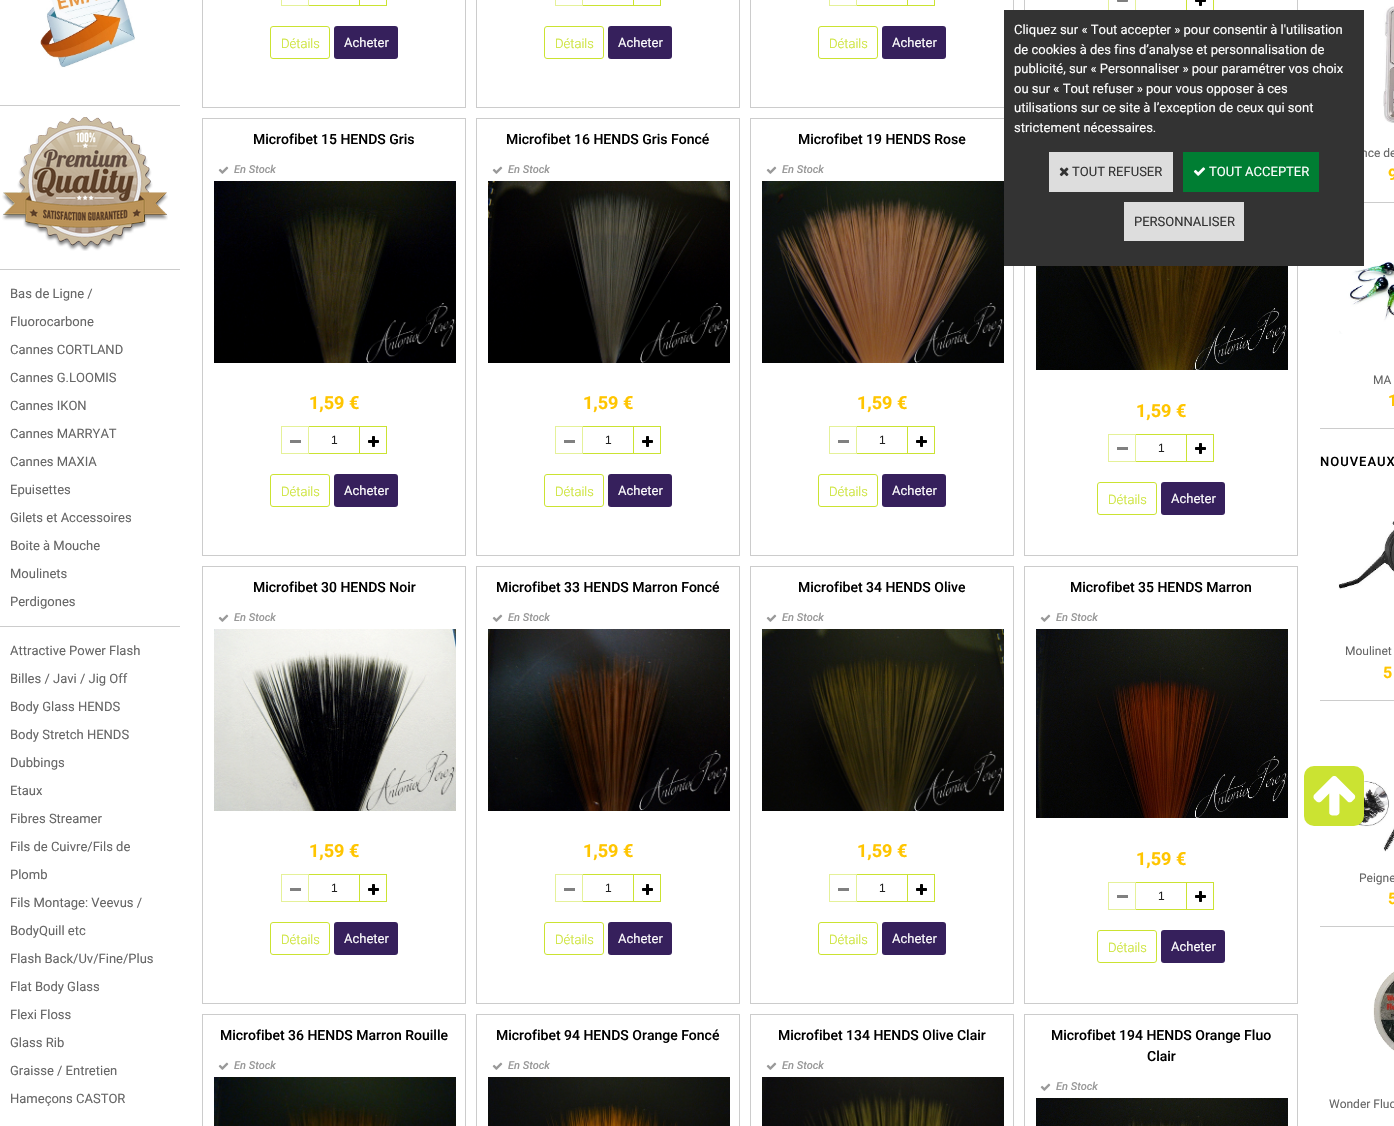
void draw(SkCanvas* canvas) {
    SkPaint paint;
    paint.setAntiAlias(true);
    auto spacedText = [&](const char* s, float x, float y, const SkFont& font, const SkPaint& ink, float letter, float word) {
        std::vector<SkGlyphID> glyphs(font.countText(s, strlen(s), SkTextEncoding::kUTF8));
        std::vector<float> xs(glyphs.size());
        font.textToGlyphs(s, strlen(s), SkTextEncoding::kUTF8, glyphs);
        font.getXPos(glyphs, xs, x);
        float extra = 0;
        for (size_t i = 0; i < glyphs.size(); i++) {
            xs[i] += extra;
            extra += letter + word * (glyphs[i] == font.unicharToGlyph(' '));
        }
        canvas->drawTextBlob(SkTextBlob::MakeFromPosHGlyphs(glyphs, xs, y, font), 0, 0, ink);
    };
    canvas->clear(0xFFFFFFFF);
    paint.setStyle(SkPaint::kStroke_Style);
    paint.setStrokeWidth(1);
    paint.setColor(0xFFCCCCCC);
    canvas->drawRect(SkRect::MakeXYWH(750.5f, -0.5f, 263, 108), paint);
    canvas->drawRect(SkRect::MakeXYWH(1024.5f, -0.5f, 273, 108), paint);
    paint.setColor(0xFFE5F199);
    canvas->drawRect(SkRect::MakeXYWH(1108.5f, -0.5f, 27, 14), paint);
    paint.setColor(0xFFCBE332);
    canvas->drawRect(SkRect::MakeXYWH(1186.5f, -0.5f, 27, 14), paint);
    paint.setColor(0xFFCCCCCC);
    canvas->drawRect(SkRect::MakeXYWH(750.5f, 118.5f, 263, 437), paint);
    canvas->drawRect(SkRect::MakeXYWH(1024.5f, 118.5f, 273, 437), paint);
    SkFont font1(fontMgr->matchFamilyStyle("Roboto", SkFontStyle::Normal()), 12);
    font1.setSubpixel(true);
    paint.setStyle(SkPaint::kFill_Style);
    paint.setColor(0xFF666666);
    canvas->drawString("nce de", 1361, 157, font1, paint);
    canvas->drawImageRect(SkImages::DeferredFromEncodedData(SkData::MakeFromFileName("img22.png")), SkRect::MakeXYWH(1339, 261, 55, 73), SkSamplingOptions());
    paint.setColor(0xFF333333);
    canvas->drawRect(SkRect::MakeXYWH(1004, 10, 360, 256), paint);
    SkFont font2(fontMgr->matchFamilyStyle("Roboto", SkFontStyle::Normal()), 13);
    font2.setSubpixel(true);
    paint.setColor(0xFFFFFFFF);
    canvas->drawString("Cliquez sur « Tout accepter » pour consentir à l'utilisation", 1014, 34, font2, paint);
    canvas->drawString("de cookies à des fins d’analyse et personnalisation de", 1014, 54, font2, paint);
    canvas->drawString("publicité, sur « Personnaliser » pour paramétrer vos choix", 1014, 73, font2, paint);
    canvas->drawString("ou sur « Tout refuser » pour vous opposer à ces", 1014, 93, font2, paint);
    canvas->drawString("utilisations sur ce site à l’exception de ceux qui sont", 1014, 112, font2, paint);
    canvas->drawString("strictement nécessaires.", 1014, 132, font2, paint);
    paint.setColor(0xFFDDDDDD);
    canvas->drawRect(SkRect::MakeXYWH(1049, 152, 124, 40), paint);
    canvas->drawImageRect(SkImages::DeferredFromEncodedData(SkData::MakeFromFileName("img1.png")), SkRect::MakeXYWH(1059, 167, 10, 10), SkSamplingOptions());
    paint.setColor(0xFF333333);
    canvas->drawString("TOUT REFUSER", 1072, 176, font2, paint);
    paint.setColor(0xFF007E33);
    canvas->drawRect(SkRect::MakeXYWH(1183, 152, 136, 40), paint);
    canvas->drawImageRect(SkImages::DeferredFromEncodedData(SkData::MakeFromFileName("img2.png")), SkRect::MakeXYWH(1193, 167, 13, 9), SkSamplingOptions());
    paint.setColor(0xFFFFFFFF);
    canvas->drawString("TOUT ACCEPTER", 1209, 176, font2, paint);
    paint.setColor(0xFFDDDDDD);
    canvas->drawRect(SkRect::MakeXYWH(1124, 202, 120, 39), paint);
    paint.setColor(0xFF333333);
    canvas->drawString("PERSONNALISER", 1134, 226, font2, paint);
    canvas->drawImageRect(SkImages::DeferredFromEncodedData(SkData::MakeFromFileName("img3.png")), SkRect::MakeXYWH(40, 0, 95, 68), SkSamplingOptions());
    paint.setColor(0xFFCCCCCC);
    canvas->drawRect(SkRect::MakeXYWH(0, 105, 180, 1), paint);
    canvas->drawImageRect(SkImages::DeferredFromEncodedData(SkData::MakeFromFileName("img4.png")), SkRect::MakeXYWH(2, 117, 166, 134), SkSamplingOptions());
    canvas->drawRect(SkRect::MakeXYWH(0, 269, 180, 1), paint);
    paint.setColor(0xFF666666);
    canvas->drawString("Bas de Ligne /", 10, 298, font2, paint);
    canvas->drawString("Fluorocarbone", 10, 326, font2, paint);
    canvas->drawString("Cannes CORTLAND", 10, 354, font2, paint);
    canvas->drawString("Cannes G.LOOMIS", 10, 382, font2, paint);
    canvas->drawString("Cannes IKON", 10, 410, font2, paint);
    canvas->drawString("Cannes MARRYAT", 10, 438, font2, paint);
    canvas->drawString("Cannes MAXIA", 10, 466, font2, paint);
    canvas->drawString("Epuisettes", 10, 494, font2, paint);
    canvas->drawString("Gilets et Accessoires", 10, 522, font2, paint);
    canvas->drawString("Boite à Mouche", 10, 550, font2, paint);
    canvas->drawString("Moulinets", 10, 578, font2, paint);
    canvas->drawString("Perdigones", 10, 606, font2, paint);
    paint.setColor(0xFFCCCCCC);
    canvas->drawRect(SkRect::MakeXYWH(0, 626, 180, 1), paint);
    paint.setColor(0xFF666666);
    canvas->drawString("Attractive Power Flash", 10, 655, font2, paint);
    canvas->drawString("Billes / Javi / Jig Off", 10, 683, font2, paint);
    canvas->drawString("Body Glass HENDS", 10, 711, font2, paint);
    canvas->drawString("Body Stretch HENDS", 10, 739, font2, paint);
    canvas->drawString("Dubbings", 10, 767, font2, paint);
    canvas->drawString("Etaux", 10, 795, font2, paint);
    canvas->drawString("Fibres Streamer", 10, 823, font2, paint);
    canvas->drawString("Fils de Cuivre/Fils de", 10, 851, font2, paint);
    canvas->drawString("Plomb", 10, 879, font2, paint);
    canvas->drawString("Fils Montage: Veevus /", 10, 907, font2, paint);
    canvas->drawString("BodyQuill etc", 10, 935, font2, paint);
    canvas->drawString("Flash Back/Uv/Fine/Plus", 10, 963, font2, paint);
    canvas->drawString("Flat Body Glass", 10, 991, font2, paint);
    canvas->drawString("Flexi Floss", 10, 1019, font2, paint);
    canvas->drawString("Glass Rib", 10, 1047, font2, paint);
    canvas->drawString("Graisse / Entretien", 10, 1075, font2, paint);
    canvas->drawString("Hameçons CASTOR", 10, 1103, font2, paint);
    paint.setStyle(SkPaint::kStroke_Style);
    paint.setColor(0xFFCCCCCC);
    canvas->drawRect(SkRect::MakeXYWH(202.5f, -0.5f, 263, 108), paint);
    paint.setColor(0xFFE5F199);
    canvas->drawRect(SkRect::MakeXYWH(281.5f, -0.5f, 27, 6), paint);
    paint.setStyle(SkPaint::kFill_Style);
    paint.setColor(0xFFCBE332);
    canvas->drawRect(SkRect::MakeXYWH(309, 5, 50, 1), paint);
    paint.setStyle(SkPaint::kStroke_Style);
    canvas->drawRect(SkRect::MakeXYWH(359.5f, -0.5f, 27, 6), paint);
    canvas->drawRoundRect(SkRect::MakeXYWH(270.5f, 26.5f, 59, 32), 2.5f, 2.5f, paint);
    SkFont font3(fontMgr->matchFamilyStyle("Roboto", SkFontStyle(300, SkFontStyle::kNormal_Width, SkFontStyle::kUpright_Slant)), 13);
    font3.setSubpixel(true);
    paint.setStyle(SkPaint::kFill_Style);
    canvas->drawString("Détails", 281, 48, font3, paint);
    paint.setColor(0xFF36205C);
    canvas->drawRoundRect(SkRect::MakeXYWH(334, 26, 64, 33), 3, 3, paint);
    paint.setColor(0xFFFFFFFF);
    canvas->drawString("Acheter", 344, 47, font2, paint);
    paint.setStyle(SkPaint::kStroke_Style);
    paint.setColor(0xFFCCCCCC);
    canvas->drawRect(SkRect::MakeXYWH(476.5f, -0.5f, 263, 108), paint);
    paint.setColor(0xFFE5F199);
    canvas->drawRect(SkRect::MakeXYWH(555.5f, -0.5f, 27, 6), paint);
    paint.setStyle(SkPaint::kFill_Style);
    paint.setColor(0xFFCBE332);
    canvas->drawRect(SkRect::MakeXYWH(583, 5, 50, 1), paint);
    paint.setStyle(SkPaint::kStroke_Style);
    canvas->drawRect(SkRect::MakeXYWH(633.5f, -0.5f, 27, 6), paint);
    canvas->drawRoundRect(SkRect::MakeXYWH(544.5f, 26.5f, 59, 32), 2.5f, 2.5f, paint);
    paint.setStyle(SkPaint::kFill_Style);
    canvas->drawString("Détails", 555, 48, font3, paint);
    paint.setColor(0xFF36205C);
    canvas->drawRoundRect(SkRect::MakeXYWH(608, 26, 64, 33), 3, 3, paint);
    paint.setColor(0xFFFFFFFF);
    canvas->drawString("Acheter", 618, 47, font2, paint);
    paint.setStyle(SkPaint::kStroke_Style);
    paint.setColor(0xFFE5F199);
    canvas->drawRect(SkRect::MakeXYWH(829.5f, -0.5f, 27, 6), paint);
    paint.setStyle(SkPaint::kFill_Style);
    paint.setColor(0xFFCBE332);
    canvas->drawRect(SkRect::MakeXYWH(857, 5, 50, 1), paint);
    paint.setStyle(SkPaint::kStroke_Style);
    canvas->drawRect(SkRect::MakeXYWH(907.5f, -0.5f, 27, 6), paint);
    canvas->drawRoundRect(SkRect::MakeXYWH(818.5f, 26.5f, 59, 32), 2.5f, 2.5f, paint);
    paint.setStyle(SkPaint::kFill_Style);
    canvas->drawString("Détails", 829, 48, font3, paint);
    paint.setColor(0xFF36205C);
    canvas->drawRoundRect(SkRect::MakeXYWH(882, 26, 64, 33), 3, 3, paint);
    paint.setColor(0xFFFFFFFF);
    canvas->drawString("Acheter", 892, 47, font2, paint);
    canvas->drawImageRect(SkImages::DeferredFromEncodedData(SkData::MakeFromFileName("img5.png")), SkRect::MakeXYWH(1117, 0, 11, 2), SkSamplingOptions());
    canvas->drawImageRect(SkImages::DeferredFromEncodedData(SkData::MakeFromFileName("img6.png")), SkRect::MakeXYWH(1195, 0, 11, 6), SkSamplingOptions());
    paint.setStyle(SkPaint::kStroke_Style);
    paint.setColor(0xFFCCCCCC);
    canvas->drawRect(SkRect::MakeXYWH(202.5f, 118.5f, 263, 437), paint);
    SkFont font4(fontMgr->matchFamilyStyle("Roboto", SkFontStyle(500, SkFontStyle::kNormal_Width, SkFontStyle::kUpright_Slant)), 14);
    font4.setSubpixel(true);
    paint.setStyle(SkPaint::kFill_Style);
    paint.setColor(0xFF000000);
    canvas->drawString("Microfibet 15 HENDS Gris", 253, 144, font4, paint);
    canvas->drawImageRect(SkImages::DeferredFromEncodedData(SkData::MakeFromFileName("img7.png")), SkRect::MakeXYWH(218, 166, 11, 8), SkSamplingOptions());
    SkFont font5(fontMgr->matchFamilyStyle("Roboto", SkFontStyle(500, SkFontStyle::kNormal_Width, SkFontStyle::kItalic_Slant)), 11);
    font5.setSubpixel(true);
    paint.setColor(0xFF999999);
    canvas->drawString("En Stock", 234, 173, font5, paint);
    canvas->drawImageRect(SkImages::DeferredFromEncodedData(SkData::MakeFromFileName("img8.png")), SkRect::MakeXYWH(214, 181, 242, 182), SkSamplingOptions());
    SkFont font6(fontMgr->matchFamilyStyle("Roboto", SkFontStyle::Bold()), 18);
    font6.setSubpixel(true);
    paint.setColor(0xFFFFC500);
    canvas->drawString("1,59 €", 309, 409, font6, paint);
    paint.setStyle(SkPaint::kStroke_Style);
    paint.setColor(0xFFE5F199);
    canvas->drawRect(SkRect::MakeXYWH(281.5f, 426.5f, 27, 27), paint);
    paint.setStyle(SkPaint::kFill_Style);
    paint.setColor(0xFF808080);
    canvas->drawRect(SkRect::MakeXYWH(290, 440, 11, 3), paint);
    paint.setColor(0xFFCBE332);
    canvas->drawRect(SkRect::MakeXYWH(309, 426, 50, 1), paint);
    canvas->drawRect(SkRect::MakeXYWH(309, 453, 50, 1), paint);
    SkFont font7(fontMgr->matchFamilyStyle("Liberation Sans", SkFontStyle::Normal()), 12);
    font7.setSubpixel(true);
    paint.setColor(0xFF212121);
    canvas->drawString("1", 331, 444, font7, paint);
    paint.setStyle(SkPaint::kStroke_Style);
    paint.setColor(0xFFCBE332);
    canvas->drawRect(SkRect::MakeXYWH(359.5f, 426.5f, 27, 27), paint);
    canvas->drawImageRect(SkImages::DeferredFromEncodedData(SkData::MakeFromFileName("img9.png")), SkRect::MakeXYWH(368, 436, 11, 11), SkSamplingOptions());
    canvas->drawRoundRect(SkRect::MakeXYWH(270.5f, 474.5f, 59, 32), 2.5f, 2.5f, paint);
    paint.setStyle(SkPaint::kFill_Style);
    canvas->drawString("Détails", 281, 496, font3, paint);
    paint.setColor(0xFF36205C);
    canvas->drawRoundRect(SkRect::MakeXYWH(334, 474, 64, 33), 3, 3, paint);
    paint.setColor(0xFFFFFFFF);
    canvas->drawString("Acheter", 344, 495, font2, paint);
    paint.setStyle(SkPaint::kStroke_Style);
    paint.setColor(0xFFCCCCCC);
    canvas->drawRect(SkRect::MakeXYWH(476.5f, 118.5f, 263, 437), paint);
    paint.setStyle(SkPaint::kFill_Style);
    paint.setColor(0xFF000000);
    canvas->drawString("Microfibet 16 HENDS Gris Foncé", 506, 144, font4, paint);
    canvas->drawImageRect(SkImages::DeferredFromEncodedData(SkData::MakeFromFileName("img7.png")), SkRect::MakeXYWH(492, 166, 11, 8), SkSamplingOptions());
    paint.setColor(0xFF999999);
    canvas->drawString("En Stock", 508, 173, font5, paint);
    canvas->drawImageRect(SkImages::DeferredFromEncodedData(SkData::MakeFromFileName("img10.png")), SkRect::MakeXYWH(488, 181, 242, 182), SkSamplingOptions());
    paint.setColor(0xFFFFC500);
    canvas->drawString("1,59 €", 583, 409, font6, paint);
    paint.setStyle(SkPaint::kStroke_Style);
    paint.setColor(0xFFE5F199);
    canvas->drawRect(SkRect::MakeXYWH(555.5f, 426.5f, 27, 27), paint);
    paint.setStyle(SkPaint::kFill_Style);
    paint.setColor(0xFF808080);
    canvas->drawRect(SkRect::MakeXYWH(564, 440, 11, 3), paint);
    paint.setColor(0xFFCBE332);
    canvas->drawRect(SkRect::MakeXYWH(583, 426, 50, 1), paint);
    canvas->drawRect(SkRect::MakeXYWH(583, 453, 50, 1), paint);
    paint.setColor(0xFF212121);
    canvas->drawString("1", 605, 444, font7, paint);
    paint.setStyle(SkPaint::kStroke_Style);
    paint.setColor(0xFFCBE332);
    canvas->drawRect(SkRect::MakeXYWH(633.5f, 426.5f, 27, 27), paint);
    canvas->drawImageRect(SkImages::DeferredFromEncodedData(SkData::MakeFromFileName("img9.png")), SkRect::MakeXYWH(642, 436, 11, 11), SkSamplingOptions());
    canvas->drawRoundRect(SkRect::MakeXYWH(544.5f, 474.5f, 59, 32), 2.5f, 2.5f, paint);
    paint.setStyle(SkPaint::kFill_Style);
    canvas->drawString("Détails", 555, 496, font3, paint);
    paint.setColor(0xFF36205C);
    canvas->drawRoundRect(SkRect::MakeXYWH(608, 474, 64, 33), 3, 3, paint);
    paint.setColor(0xFFFFFFFF);
    canvas->drawString("Acheter", 618, 495, font2, paint);
    paint.setColor(0xFF000000);
    canvas->drawString("Microfibet 19 HENDS Rose", 798, 144, font4, paint);
    canvas->drawImageRect(SkImages::DeferredFromEncodedData(SkData::MakeFromFileName("img7.png")), SkRect::MakeXYWH(766, 166, 11, 8), SkSamplingOptions());
    paint.setColor(0xFF999999);
    canvas->drawString("En Stock", 782, 173, font5, paint);
    canvas->drawImageRect(SkImages::DeferredFromEncodedData(SkData::MakeFromFileName("img11.png")), SkRect::MakeXYWH(762, 181, 242, 182), SkSamplingOptions());
    paint.setColor(0xFFFFC500);
    canvas->drawString("1,59 €", 857, 409, font6, paint);
    paint.setStyle(SkPaint::kStroke_Style);
    paint.setColor(0xFFE5F199);
    canvas->drawRect(SkRect::MakeXYWH(829.5f, 426.5f, 27, 27), paint);
    paint.setStyle(SkPaint::kFill_Style);
    paint.setColor(0xFF808080);
    canvas->drawRect(SkRect::MakeXYWH(838, 440, 11, 3), paint);
    paint.setColor(0xFFCBE332);
    canvas->drawRect(SkRect::MakeXYWH(857, 426, 50, 1), paint);
    canvas->drawRect(SkRect::MakeXYWH(857, 453, 50, 1), paint);
    paint.setColor(0xFF212121);
    canvas->drawString("1", 879, 444, font7, paint);
    paint.setStyle(SkPaint::kStroke_Style);
    paint.setColor(0xFFCBE332);
    canvas->drawRect(SkRect::MakeXYWH(907.5f, 426.5f, 27, 27), paint);
    canvas->drawImageRect(SkImages::DeferredFromEncodedData(SkData::MakeFromFileName("img9.png")), SkRect::MakeXYWH(916, 436, 11, 11), SkSamplingOptions());
    canvas->drawRoundRect(SkRect::MakeXYWH(818.5f, 474.5f, 59, 32), 2.5f, 2.5f, paint);
    paint.setStyle(SkPaint::kFill_Style);
    canvas->drawString("Détails", 829, 496, font3, paint);
    paint.setColor(0xFF36205C);
    canvas->drawRoundRect(SkRect::MakeXYWH(882, 474, 64, 33), 3, 3, paint);
    paint.setColor(0xFFFFFFFF);
    canvas->drawString("Acheter", 892, 495, font2, paint);
    canvas->drawImageRect(SkImages::DeferredFromEncodedData(SkData::MakeFromFileName("img12.png")), SkRect::MakeXYWH(1036, 266, 252, 104), SkSamplingOptions());
    paint.setColor(0xFFFFC500);
    canvas->drawString("1,59 €", 1136, 417, font6, paint);
    paint.setStyle(SkPaint::kStroke_Style);
    paint.setColor(0xFFE5F199);
    canvas->drawRect(SkRect::MakeXYWH(1108.5f, 434.5f, 27, 27), paint);
    paint.setStyle(SkPaint::kFill_Style);
    paint.setColor(0xFF808080);
    canvas->drawRect(SkRect::MakeXYWH(1117, 447, 11, 3), paint);
    paint.setColor(0xFFCBE332);
    canvas->drawRect(SkRect::MakeXYWH(1136, 434, 50, 1), paint);
    canvas->drawRect(SkRect::MakeXYWH(1136, 461, 50, 1), paint);
    paint.setColor(0xFF212121);
    canvas->drawString("1", 1158, 452, font7, paint);
    paint.setStyle(SkPaint::kStroke_Style);
    paint.setColor(0xFFCBE332);
    canvas->drawRect(SkRect::MakeXYWH(1186.5f, 434.5f, 27, 27), paint);
    canvas->drawImageRect(SkImages::DeferredFromEncodedData(SkData::MakeFromFileName("img9.png")), SkRect::MakeXYWH(1195, 443, 11, 11), SkSamplingOptions());
    canvas->drawRoundRect(SkRect::MakeXYWH(1097.5f, 482.5f, 59, 32), 2.5f, 2.5f, paint);
    paint.setStyle(SkPaint::kFill_Style);
    canvas->drawString("Détails", 1108, 504, font3, paint);
    paint.setColor(0xFF36205C);
    canvas->drawRoundRect(SkRect::MakeXYWH(1161, 482, 64, 33), 3, 3, paint);
    paint.setColor(0xFFFFFFFF);
    canvas->drawString("Acheter", 1171, 503, font2, paint);
    paint.setStyle(SkPaint::kStroke_Style);
    paint.setColor(0xFFCCCCCC);
    canvas->drawRect(SkRect::MakeXYWH(202.5f, 566.5f, 263, 437), paint);
    paint.setStyle(SkPaint::kFill_Style);
    paint.setColor(0xFF000000);
    canvas->drawString("Microfibet 30 HENDS Noir", 253, 592, font4, paint);
    canvas->drawImageRect(SkImages::DeferredFromEncodedData(SkData::MakeFromFileName("img7.png")), SkRect::MakeXYWH(218, 614, 11, 8), SkSamplingOptions());
    paint.setColor(0xFF999999);
    canvas->drawString("En Stock", 234, 621, font5, paint);
    canvas->drawImageRect(SkImages::DeferredFromEncodedData(SkData::MakeFromFileName("img13.png")), SkRect::MakeXYWH(214, 629, 242, 182), SkSamplingOptions());
    paint.setColor(0xFFFFC500);
    canvas->drawString("1,59 €", 309, 857, font6, paint);
    paint.setStyle(SkPaint::kStroke_Style);
    paint.setColor(0xFFE5F199);
    canvas->drawRect(SkRect::MakeXYWH(281.5f, 874.5f, 27, 27), paint);
    paint.setStyle(SkPaint::kFill_Style);
    paint.setColor(0xFF808080);
    canvas->drawRect(SkRect::MakeXYWH(290, 888, 11, 3), paint);
    paint.setColor(0xFFCBE332);
    canvas->drawRect(SkRect::MakeXYWH(309, 874, 50, 1), paint);
    canvas->drawRect(SkRect::MakeXYWH(309, 901, 50, 1), paint);
    paint.setColor(0xFF212121);
    canvas->drawString("1", 331, 892, font7, paint);
    paint.setStyle(SkPaint::kStroke_Style);
    paint.setColor(0xFFCBE332);
    canvas->drawRect(SkRect::MakeXYWH(359.5f, 874.5f, 27, 27), paint);
    canvas->drawImageRect(SkImages::DeferredFromEncodedData(SkData::MakeFromFileName("img9.png")), SkRect::MakeXYWH(368, 884, 11, 11), SkSamplingOptions());
    canvas->drawRoundRect(SkRect::MakeXYWH(270.5f, 922.5f, 59, 32), 2.5f, 2.5f, paint);
    paint.setStyle(SkPaint::kFill_Style);
    canvas->drawString("Détails", 281, 944, font3, paint);
    paint.setColor(0xFF36205C);
    canvas->drawRoundRect(SkRect::MakeXYWH(334, 922, 64, 33), 3, 3, paint);
    paint.setColor(0xFFFFFFFF);
    canvas->drawString("Acheter", 344, 943, font2, paint);
    paint.setStyle(SkPaint::kStroke_Style);
    paint.setColor(0xFFCCCCCC);
    canvas->drawRect(SkRect::MakeXYWH(476.5f, 566.5f, 263, 437), paint);
    paint.setStyle(SkPaint::kFill_Style);
    paint.setColor(0xFF000000);
    canvas->drawString("Microfibet 33 HENDS Marron Foncé", 496, 592, font4, paint);
    canvas->drawImageRect(SkImages::DeferredFromEncodedData(SkData::MakeFromFileName("img7.png")), SkRect::MakeXYWH(492, 614, 11, 8), SkSamplingOptions());
    paint.setColor(0xFF999999);
    canvas->drawString("En Stock", 508, 621, font5, paint);
    canvas->drawImageRect(SkImages::DeferredFromEncodedData(SkData::MakeFromFileName("img14.png")), SkRect::MakeXYWH(488, 629, 242, 182), SkSamplingOptions());
    paint.setColor(0xFFFFC500);
    canvas->drawString("1,59 €", 583, 857, font6, paint);
    paint.setStyle(SkPaint::kStroke_Style);
    paint.setColor(0xFFE5F199);
    canvas->drawRect(SkRect::MakeXYWH(555.5f, 874.5f, 27, 27), paint);
    paint.setStyle(SkPaint::kFill_Style);
    paint.setColor(0xFF808080);
    canvas->drawRect(SkRect::MakeXYWH(564, 888, 11, 3), paint);
    paint.setColor(0xFFCBE332);
    canvas->drawRect(SkRect::MakeXYWH(583, 874, 50, 1), paint);
    canvas->drawRect(SkRect::MakeXYWH(583, 901, 50, 1), paint);
    paint.setColor(0xFF212121);
    canvas->drawString("1", 605, 892, font7, paint);
    paint.setStyle(SkPaint::kStroke_Style);
    paint.setColor(0xFFCBE332);
    canvas->drawRect(SkRect::MakeXYWH(633.5f, 874.5f, 27, 27), paint);
    canvas->drawImageRect(SkImages::DeferredFromEncodedData(SkData::MakeFromFileName("img9.png")), SkRect::MakeXYWH(642, 884, 11, 11), SkSamplingOptions());
    canvas->drawRoundRect(SkRect::MakeXYWH(544.5f, 922.5f, 59, 32), 2.5f, 2.5f, paint);
    paint.setStyle(SkPaint::kFill_Style);
    canvas->drawString("Détails", 555, 944, font3, paint);
    paint.setColor(0xFF36205C);
    canvas->drawRoundRect(SkRect::MakeXYWH(608, 922, 64, 33), 3, 3, paint);
    paint.setColor(0xFFFFFFFF);
    canvas->drawString("Acheter", 618, 943, font2, paint);
    paint.setStyle(SkPaint::kStroke_Style);
    paint.setColor(0xFFCCCCCC);
    canvas->drawRect(SkRect::MakeXYWH(750.5f, 566.5f, 263, 437), paint);
    paint.setStyle(SkPaint::kFill_Style);
    paint.setColor(0xFF000000);
    canvas->drawString("Microfibet 34 HENDS Olive", 798, 592, font4, paint);
    canvas->drawImageRect(SkImages::DeferredFromEncodedData(SkData::MakeFromFileName("img7.png")), SkRect::MakeXYWH(766, 614, 11, 8), SkSamplingOptions());
    paint.setColor(0xFF999999);
    canvas->drawString("En Stock", 782, 621, font5, paint);
    canvas->drawImageRect(SkImages::DeferredFromEncodedData(SkData::MakeFromFileName("img15.png")), SkRect::MakeXYWH(762, 629, 242, 182), SkSamplingOptions());
    paint.setColor(0xFFFFC500);
    canvas->drawString("1,59 €", 857, 857, font6, paint);
    paint.setStyle(SkPaint::kStroke_Style);
    paint.setColor(0xFFE5F199);
    canvas->drawRect(SkRect::MakeXYWH(829.5f, 874.5f, 27, 27), paint);
    paint.setStyle(SkPaint::kFill_Style);
    paint.setColor(0xFF808080);
    canvas->drawRect(SkRect::MakeXYWH(838, 888, 11, 3), paint);
    paint.setColor(0xFFCBE332);
    canvas->drawRect(SkRect::MakeXYWH(857, 874, 50, 1), paint);
    canvas->drawRect(SkRect::MakeXYWH(857, 901, 50, 1), paint);
    paint.setColor(0xFF212121);
    canvas->drawString("1", 879, 892, font7, paint);
    paint.setStyle(SkPaint::kStroke_Style);
    paint.setColor(0xFFCBE332);
    canvas->drawRect(SkRect::MakeXYWH(907.5f, 874.5f, 27, 27), paint);
    canvas->drawImageRect(SkImages::DeferredFromEncodedData(SkData::MakeFromFileName("img9.png")), SkRect::MakeXYWH(916, 884, 11, 11), SkSamplingOptions());
    canvas->drawRoundRect(SkRect::MakeXYWH(818.5f, 922.5f, 59, 32), 2.5f, 2.5f, paint);
    paint.setStyle(SkPaint::kFill_Style);
    canvas->drawString("Détails", 829, 944, font3, paint);
    paint.setColor(0xFF36205C);
    canvas->drawRoundRect(SkRect::MakeXYWH(882, 922, 64, 33), 3, 3, paint);
    paint.setColor(0xFFFFFFFF);
    canvas->drawString("Acheter", 892, 943, font2, paint);
    paint.setStyle(SkPaint::kStroke_Style);
    paint.setColor(0xFFCCCCCC);
    canvas->drawRect(SkRect::MakeXYWH(1024.5f, 566.5f, 273, 437), paint);
    paint.setStyle(SkPaint::kFill_Style);
    paint.setColor(0xFF000000);
    canvas->drawString("Microfibet 35 HENDS Marron", 1070, 592, font4, paint);
    canvas->drawImageRect(SkImages::DeferredFromEncodedData(SkData::MakeFromFileName("img7.png")), SkRect::MakeXYWH(1040, 614, 11, 8), SkSamplingOptions());
    paint.setColor(0xFF999999);
    canvas->drawString("En Stock", 1056, 621, font5, paint);
    canvas->drawImageRect(SkImages::DeferredFromEncodedData(SkData::MakeFromFileName("img16.png")), SkRect::MakeXYWH(1036, 629, 252, 189), SkSamplingOptions());
    paint.setColor(0xFFFFC500);
    canvas->drawString("1,59 €", 1136, 865, font6, paint);
    paint.setStyle(SkPaint::kStroke_Style);
    paint.setColor(0xFFE5F199);
    canvas->drawRect(SkRect::MakeXYWH(1108.5f, 882.5f, 27, 27), paint);
    paint.setStyle(SkPaint::kFill_Style);
    paint.setColor(0xFF808080);
    canvas->drawRect(SkRect::MakeXYWH(1117, 895, 11, 3), paint);
    paint.setColor(0xFFCBE332);
    canvas->drawRect(SkRect::MakeXYWH(1136, 882, 50, 1), paint);
    canvas->drawRect(SkRect::MakeXYWH(1136, 909, 50, 1), paint);
    paint.setColor(0xFF212121);
    canvas->drawString("1", 1158, 900, font7, paint);
    paint.setStyle(SkPaint::kStroke_Style);
    paint.setColor(0xFFCBE332);
    canvas->drawRect(SkRect::MakeXYWH(1186.5f, 882.5f, 27, 27), paint);
    canvas->drawImageRect(SkImages::DeferredFromEncodedData(SkData::MakeFromFileName("img9.png")), SkRect::MakeXYWH(1195, 891, 11, 11), SkSamplingOptions());
    canvas->drawRoundRect(SkRect::MakeXYWH(1097.5f, 930.5f, 59, 32), 2.5f, 2.5f, paint);
    paint.setStyle(SkPaint::kFill_Style);
    canvas->drawString("Détails", 1108, 952, font3, paint);
    paint.setColor(0xFF36205C);
    canvas->drawRoundRect(SkRect::MakeXYWH(1161, 930, 64, 33), 3, 3, paint);
    paint.setColor(0xFFFFFFFF);
    canvas->drawString("Acheter", 1171, 951, font2, paint);
    paint.setStyle(SkPaint::kStroke_Style);
    paint.setColor(0xFFCCCCCC);
    canvas->drawRect(SkRect::MakeXYWH(202.5f, 1014.5f, 263, 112), paint);
    paint.setStyle(SkPaint::kFill_Style);
    paint.setColor(0xFF000000);
    canvas->drawString("Microfibet 36 HENDS Marron Rouille", 220, 1040, font4, paint);
    canvas->drawImageRect(SkImages::DeferredFromEncodedData(SkData::MakeFromFileName("img7.png")), SkRect::MakeXYWH(218, 1062, 11, 8), SkSamplingOptions());
    paint.setColor(0xFF999999);
    canvas->drawString("En Stock", 234, 1069, font5, paint);
    canvas->drawImageRect(SkImages::DeferredFromEncodedData(SkData::MakeFromFileName("img17.png")), SkRect::MakeXYWH(214, 1077, 242, 49), SkSamplingOptions());
    paint.setStyle(SkPaint::kStroke_Style);
    paint.setColor(0xFFCCCCCC);
    canvas->drawRect(SkRect::MakeXYWH(476.5f, 1014.5f, 263, 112), paint);
    paint.setStyle(SkPaint::kFill_Style);
    paint.setColor(0xFF000000);
    canvas->drawString("Microfibet 94 HENDS Orange Foncé", 496, 1040, font4, paint);
    canvas->drawImageRect(SkImages::DeferredFromEncodedData(SkData::MakeFromFileName("img7.png")), SkRect::MakeXYWH(492, 1062, 11, 8), SkSamplingOptions());
    paint.setColor(0xFF999999);
    canvas->drawString("En Stock", 508, 1069, font5, paint);
    canvas->drawImageRect(SkImages::DeferredFromEncodedData(SkData::MakeFromFileName("img18.png")), SkRect::MakeXYWH(488, 1077, 242, 49), SkSamplingOptions());
    paint.setStyle(SkPaint::kStroke_Style);
    paint.setColor(0xFFCCCCCC);
    canvas->drawRect(SkRect::MakeXYWH(750.5f, 1014.5f, 263, 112), paint);
    paint.setStyle(SkPaint::kFill_Style);
    paint.setColor(0xFF000000);
    canvas->drawString("Microfibet 134 HENDS Olive Clair", 778, 1040, font4, paint);
    canvas->drawImageRect(SkImages::DeferredFromEncodedData(SkData::MakeFromFileName("img7.png")), SkRect::MakeXYWH(766, 1062, 11, 8), SkSamplingOptions());
    paint.setColor(0xFF999999);
    canvas->drawString("En Stock", 782, 1069, font5, paint);
    canvas->drawImageRect(SkImages::DeferredFromEncodedData(SkData::MakeFromFileName("img19.png")), SkRect::MakeXYWH(762, 1077, 242, 49), SkSamplingOptions());
    paint.setStyle(SkPaint::kStroke_Style);
    paint.setColor(0xFFCCCCCC);
    canvas->drawRect(SkRect::MakeXYWH(1024.5f, 1014.5f, 273, 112), paint);
    paint.setStyle(SkPaint::kFill_Style);
    paint.setColor(0xFF000000);
    canvas->drawString("Microfibet 194 HENDS Orange Fluo", 1051, 1040, font4, paint);
    canvas->drawString("Clair", 1147, 1061, font4, paint);
    canvas->drawImageRect(SkImages::DeferredFromEncodedData(SkData::MakeFromFileName("img7.png")), SkRect::MakeXYWH(1040, 1083, 11, 8), SkSamplingOptions());
    paint.setColor(0xFF999999);
    canvas->drawString("En Stock", 1056, 1090, font5, paint);
    canvas->drawImageRect(SkImages::DeferredFromEncodedData(SkData::MakeFromFileName("img20.png")), SkRect::MakeXYWH(1036, 1098, 252, 28), SkSamplingOptions());
    paint.setColor(0xFFCCCCCC);
    canvas->drawRect(SkRect::MakeXYWH(1364, 202, 30, 1), paint);
    canvas->drawImageRect(SkImages::DeferredFromEncodedData(SkData::MakeFromFileName("img21.png")), SkRect::MakeXYWH(1383, 6, 11, 117), SkSamplingOptions());
    SkFont font8(fontMgr->matchFamilyStyle("Roboto", SkFontStyle::Bold()), 16);
    font8.setSubpixel(true);
    paint.setColor(0xFFFFC500);
    canvas->drawString("9", 1388, 180, font8, paint);
    paint.setColor(0xFFCCCCCC);
    canvas->drawRect(SkRect::MakeXYWH(1320, 428, 74, 1), paint);
    paint.setColor(0xFF666666);
    canvas->drawString("MA", 1373, 384, font1, paint);
    paint.setColor(0xFFFFC500);
    canvas->drawString("1", 1388, 406, font8, paint);
    SkFont font9(fontMgr->matchFamilyStyle("Roboto", SkFontStyle(500, SkFontStyle::kNormal_Width, SkFontStyle::kUpright_Slant)), 13);
    font9.setSubpixel(true);
    paint.setColor(0xFF000000);
    spacedText("NOUVEAUX", 1320, 466, font9, paint, 1, 0);
    paint.setColor(0xFFCCCCCC);
    canvas->drawRect(SkRect::MakeXYWH(1320, 700, 74, 1), paint);
    canvas->drawImageRect(SkImages::DeferredFromEncodedData(SkData::MakeFromFileName("img23.png")), SkRect::MakeXYWH(1338, 521, 56, 69), SkSamplingOptions());
    paint.setColor(0xFF666666);
    canvas->drawString("Moulinet", 1345, 655, font1, paint);
    paint.setColor(0xFFFFC500);
    canvas->drawString("5", 1383, 678, font8, paint);
    paint.setColor(0xFFCCCCCC);
    canvas->drawRect(SkRect::MakeXYWH(1320, 926, 74, 1), paint);
    canvas->drawImageRect(SkImages::DeferredFromEncodedData(SkData::MakeFromFileName("img24.png")), SkRect::MakeXYWH(1344, 781, 50, 71), SkSamplingOptions());
    paint.setColor(0xFF666666);
    canvas->drawString("Peigne", 1359, 882, font1, paint);
    paint.setColor(0xFFFFC500);
    canvas->drawString("5", 1388, 904, font8, paint);
    canvas->drawImageRect(SkImages::DeferredFromEncodedData(SkData::MakeFromFileName("img25.png")), SkRect::MakeXYWH(1373, 971, 21, 80), SkSamplingOptions());
    paint.setColor(0xFF666666);
    canvas->drawString("Wonder Fluo", 1329, 1108, font1, paint);
    paint.setColor(0xFFCBE332);
    canvas->drawRoundRect(SkRect::MakeXYWH(1304, 766, 60, 60), 10, 10, paint);
    canvas->drawImageRect(SkImages::DeferredFromEncodedData(SkData::MakeFromFileName("img26.png")), SkRect::MakeXYWH(1313, 776, 43, 40), SkSamplingOptions());
}
